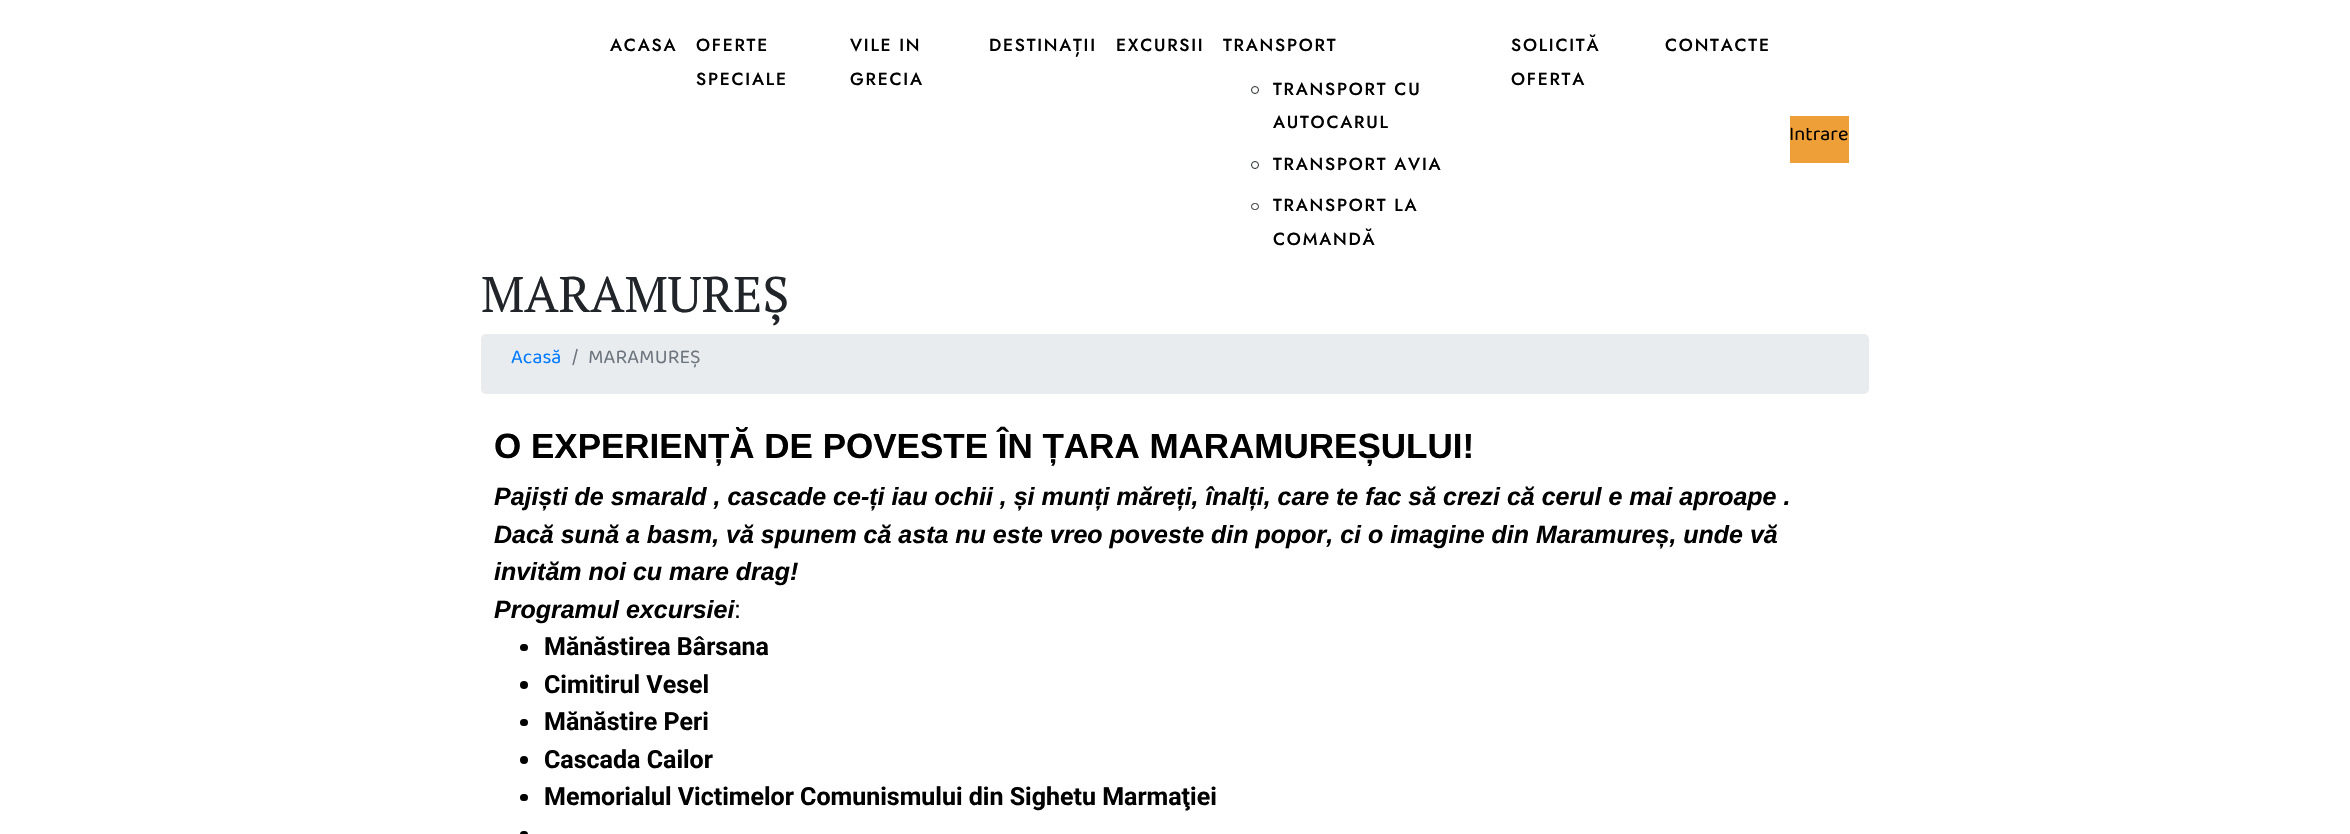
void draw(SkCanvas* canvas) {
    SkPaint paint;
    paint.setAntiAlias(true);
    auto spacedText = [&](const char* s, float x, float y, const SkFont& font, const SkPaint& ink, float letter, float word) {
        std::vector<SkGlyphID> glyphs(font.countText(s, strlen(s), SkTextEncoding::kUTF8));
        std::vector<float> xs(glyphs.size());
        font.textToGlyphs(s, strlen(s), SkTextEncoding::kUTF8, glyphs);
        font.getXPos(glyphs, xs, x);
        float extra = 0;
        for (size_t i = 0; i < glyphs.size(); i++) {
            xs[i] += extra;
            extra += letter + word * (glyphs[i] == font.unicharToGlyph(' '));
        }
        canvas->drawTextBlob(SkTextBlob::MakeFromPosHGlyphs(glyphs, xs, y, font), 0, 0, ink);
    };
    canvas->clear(0xFFFFFFFF);
    SkFont font1(fontMgr->matchFamilyStyle("Jost", SkFontStyle(500, SkFontStyle::kNormal_Width, SkFontStyle::kUpright_Slant)), 17.5f);
    font1.setSubpixel(true);
    paint.setColor(0xFF000000);
    spacedText("ACASA", 610, 51, font1, paint, 1.75f, 0);
    spacedText("OFERTE", 696, 51, font1, paint, 1.75f, 0);
    spacedText("SPECIALE", 696, 85, font1, paint, 1.75f, 0);
    spacedText("VILE IN", 850, 51, font1, paint, 1.75f, 0);
    spacedText("GRECIA", 850, 85, font1, paint, 1.75f, 0);
    spacedText("DESTINAȚII", 989, 51, font1, paint, 1.75f, 0);
    spacedText("EXCURSII", 1116, 51, font1, paint, 1.75f, 0);
    spacedText("TRANSPORT", 1223, 51, font1, paint, 1.75f, 0);
    paint.setStyle(SkPaint::kStroke_Style);
    paint.setStrokeWidth(1);
    paint.setColor(0xFF212529);
    canvas->drawCircle(1255, 90, 3.5f, paint);
    paint.setStyle(SkPaint::kFill_Style);
    paint.setColor(0xFF000000);
    spacedText("TRANSPORT CU", 1273, 95, font1, paint, 1.75f, 0);
    spacedText("AUTOCARUL", 1273, 128, font1, paint, 1.75f, 0);
    paint.setStyle(SkPaint::kStroke_Style);
    paint.setColor(0xFF212529);
    canvas->drawCircle(1255, 165, 3.5f, paint);
    paint.setStyle(SkPaint::kFill_Style);
    paint.setColor(0xFF000000);
    spacedText("TRANSPORT AVIA", 1273, 170, font1, paint, 1.75f, 0);
    paint.setStyle(SkPaint::kStroke_Style);
    paint.setColor(0xFF212529);
    canvas->drawRoundRect(SkRect::MakeXYWH(1251.5f, 203.5f, 7, 6), 3, 3, paint);
    paint.setStyle(SkPaint::kFill_Style);
    paint.setColor(0xFF000000);
    spacedText("TRANSPORT LA", 1273, 211, font1, paint, 1.75f, 0);
    spacedText("COMANDĂ", 1273, 245, font1, paint, 1.75f, 0);
    spacedText("SOLICITĂ", 1511, 51, font1, paint, 1.75f, 0);
    spacedText("OFERTA", 1511, 85, font1, paint, 1.75f, 0);
    spacedText("CONTACTE", 1665, 51, font1, paint, 1.75f, 0);
    paint.setColor(0xFFEF9F37);
    canvas->drawRect(SkRect::MakeXYWH(1790, 116, 59, 47), paint);
    SkFont font2(fontMgr->matchFamilyStyle("Baloo Tammudu 2", SkFontStyle::Normal()), 20);
    font2.setSubpixel(true);
    paint.setColor(0xFF000000);
    canvas->drawString("Intrare", 1789, 140, font2, paint);
    SkFont font3(fontMgr->matchFamilyStyle("PT Serif", SkFontStyle::Normal()), 50);
    font3.setSubpixel(true);
    paint.setColor(0xFF212529);
    canvas->drawString("MARAMUREȘ", 481, 312, font3, paint);
    paint.setColor(0xFFE9ECEF);
    canvas->drawRoundRect(SkRect::MakeXYWH(481, 334, 1388, 60), 5, 5, paint);
    paint.setColor(0xFF007BFF);
    canvas->drawString("Acasă", 511, 363, font2, paint);
    paint.setColor(0xFF6C757D);
    canvas->drawString("/", 572, 363, font2, paint);
    canvas->drawString("MARAMUREȘ", 588, 363, font2, paint);
    SkFont font4(fontMgr->matchFamilyStyle("Liberation Sans", SkFontStyle::Bold()), 35);
    font4.setSubpixel(true);
    paint.setColor(0xFF000000);
    canvas->drawString("O EXPERIENȚĂ DE POVESTE ÎN ȚARA MARAMUREȘULUI!", 494, 458, font4, paint);
    SkFont font5(fontMgr->matchFamilyStyle("Liberation Sans", SkFontStyle::BoldItalic()), 25);
    font5.setSubpixel(true);
    canvas->drawString("Pajiști de smarald , cascade ce-ți iau ochii , și munți măreți, înalți, care te fac să crezi că cerul e mai aproape .", 494, 505, font5, paint);
    canvas->drawString("Dacă sună a basm, vă spunem că asta nu este vreo poveste din popor, ci o imagine din Maramureș, unde vă", 494, 543, font5, paint);
    canvas->drawString("invităm noi cu mare drag!", 494, 580, font5, paint);
    canvas->drawString("Programul excursiei", 494, 618, font5, paint);
    SkFont font6(fontMgr->matchFamilyStyle("Liberation Sans", SkFontStyle::Normal()), 25);
    font6.setSubpixel(true);
    canvas->drawString(":", 734, 618, font6, paint);
    canvas->drawRoundRect(SkRect::MakeXYWH(520, 644, 8, 7), 3.5f, 3.5f, paint);
    SkFont font7(fontMgr->matchFamilyStyle("Roboto", SkFontStyle::Bold()), 25);
    font7.setSubpixel(true);
    canvas->drawString("Mănăstirea Bârsana", 544, 655, font7, paint);
    canvas->drawCircle(524, 685, 4, paint);
    canvas->drawString("Cimitirul Vesel", 544, 693, font7, paint);
    canvas->drawRoundRect(SkRect::MakeXYWH(520, 719, 8, 7), 3.5f, 3.5f, paint);
    canvas->drawString("Mănăstire Peri", 544, 730, font7, paint);
    canvas->drawCircle(524, 760, 4, paint);
    canvas->drawString("Cascada Cailor", 544, 768, font7, paint);
    canvas->drawRoundRect(SkRect::MakeXYWH(520, 794, 8, 7), 3.5f, 3.5f, paint);
    canvas->drawString("Memorialul Victimelor Comunismului din Sighetu Marmaţiei", 544, 805, font7, paint);
    canvas->drawRoundRect(SkRect::MakeXYWH(520, 831, 8, 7), 4, 4, paint);
}
